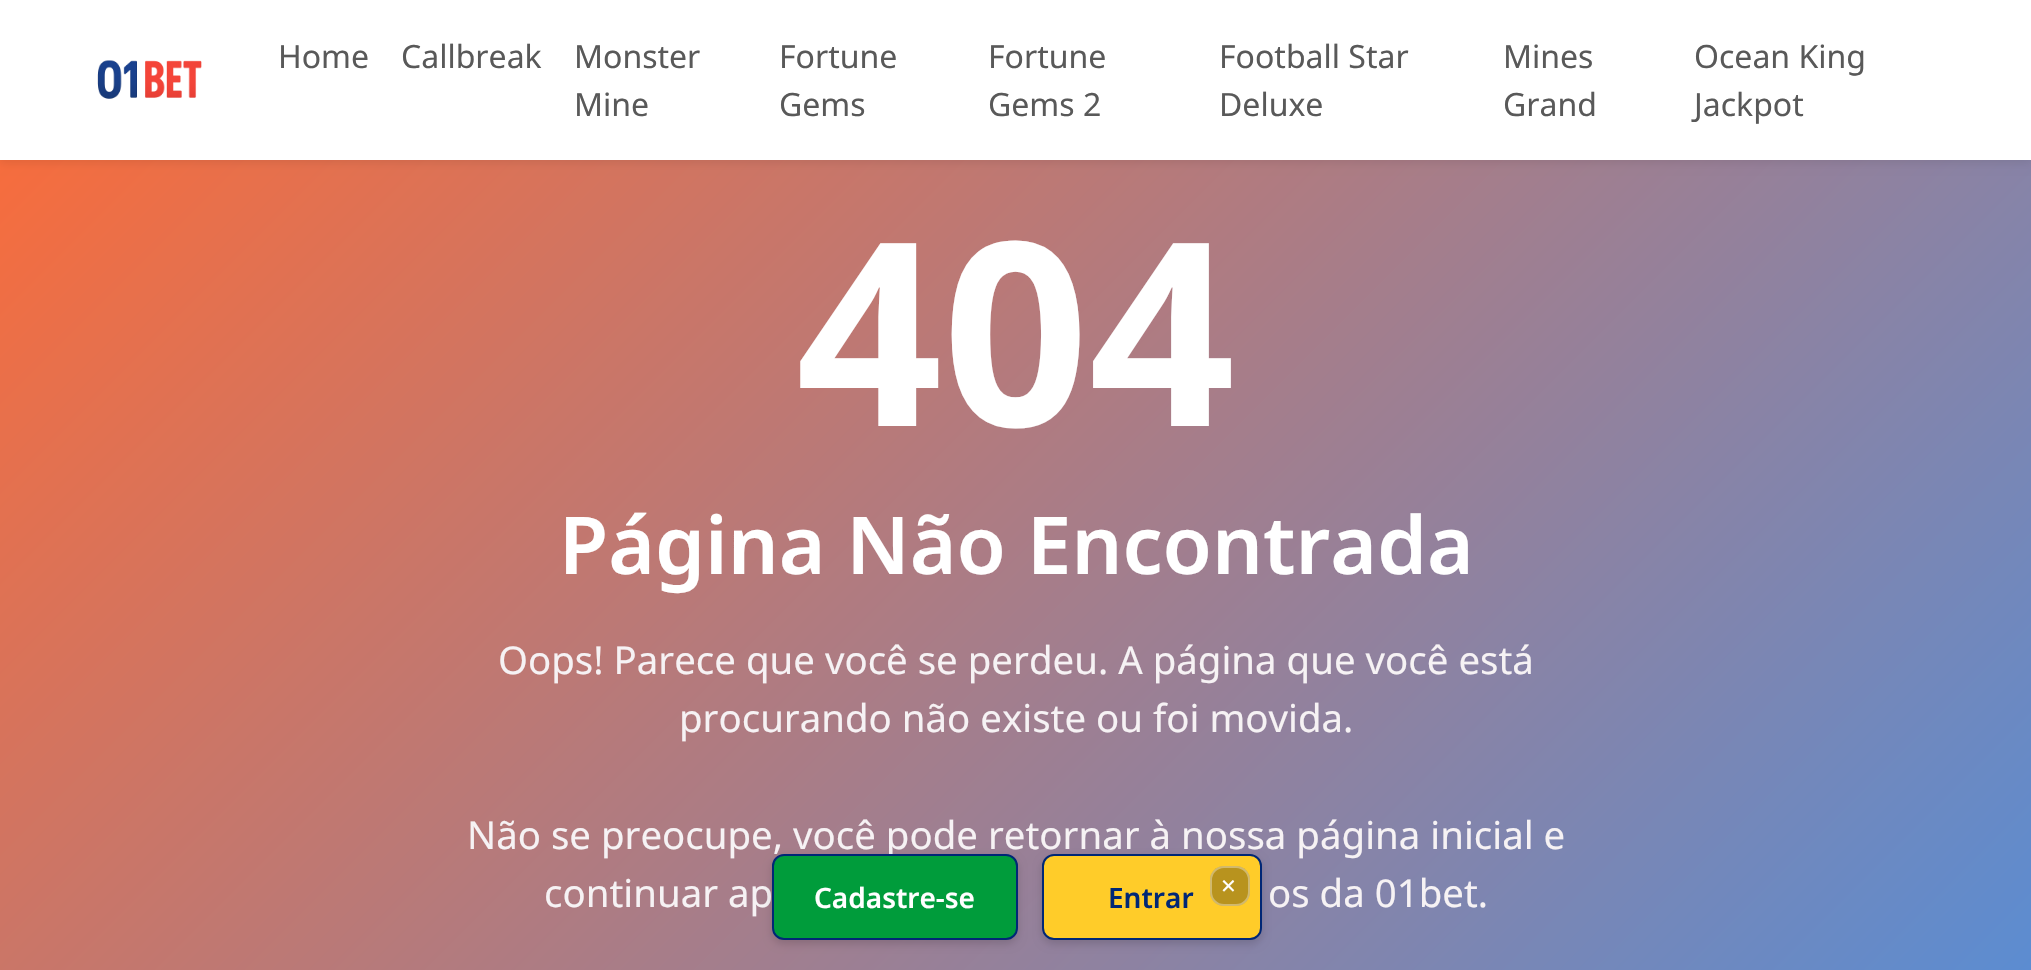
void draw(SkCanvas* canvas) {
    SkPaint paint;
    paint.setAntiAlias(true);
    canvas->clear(0xFFFFFFFF);
    {
        const SkColor colors[] = {0xFFFF6B35, 0xFF4A90E2};
        const float stops[] = {0, 1};
        const SkPoint ends[] = {{184, -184}, {1848, 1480}};
        paint.setShader(SkGradientShader::MakeLinear(ends, colors, stops, 2, SkTileMode::kClamp));
        paint.setAlpha(255);
    }
    canvas->drawRect(SkRect::MakeXYWH(0, 160, 2031, 810), paint);
    paint.setShader(nullptr);
    paint.setColor(0x12000000);
    paint.setMaskFilter(SkMaskFilter::MakeBlur(kNormal_SkBlurStyle, 4));
    canvas->drawRect(SkRect::MakeXYWH(0, 4, 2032, 160), paint);
    paint.setMaskFilter(nullptr);
    paint.setColor(0xFFFFFFFF);
    canvas->drawRect(SkRect::MakeXYWH(0, 0, 2031, 160), paint);
    canvas->drawImageRect(SkImages::DeferredFromEncodedData(SkData::MakeFromFileName("img1.png")), SkRect::MakeXYWH(97, 60, 105, 39), SkSamplingOptions());
    SkFont font1(fontMgr->matchFamilyStyle("Noto Sans", SkFontStyle::Normal()), 32);
    font1.setSubpixel(true);
    paint.setColor(0xFF595959);
    canvas->drawString("Home", 278, 68, font1, paint);
    canvas->drawString("Callbreak", 401, 68, font1, paint);
    canvas->drawString("Monster", 574, 68, font1, paint);
    canvas->drawString("Mine", 574, 116, font1, paint);
    canvas->drawString("Fortune", 779, 68, font1, paint);
    canvas->drawString("Gems", 779, 116, font1, paint);
    canvas->drawString("Fortune", 988, 68, font1, paint);
    canvas->drawString("Gems 2", 988, 116, font1, paint);
    canvas->drawString("Football Star", 1219, 68, font1, paint);
    canvas->drawString("Deluxe", 1219, 116, font1, paint);
    canvas->drawString("Mines", 1503, 68, font1, paint);
    canvas->drawString("Grand", 1503, 116, font1, paint);
    canvas->drawString("Ocean King", 1694, 68, font1, paint);
    canvas->drawString("Jackpot", 1694, 116, font1, paint);
    SkFont font2(fontMgr->matchFamilyStyle("Noto Sans", SkFontStyle::Bold()), 256);
    font2.setSubpixel(true);
    paint.setColor(0xFFFFFFFF);
    canvas->drawString("404", 796, 426, font2, paint);
    SkFont font3(fontMgr->matchFamilyStyle("Noto Sans", SkFontStyle(600, SkFontStyle::kNormal_Width, SkFontStyle::kUpright_Slant)), 80);
    font3.setSubpixel(true);
    canvas->drawString("Página Não Encontrada", 559, 574, font3, paint);
    SkFont font4(fontMgr->matchFamilyStyle("Noto Sans", SkFontStyle::Normal()), 38.4f);
    font4.setSubpixel(true);
    paint.setColor(0xFFF6F2F4);
    canvas->drawString("Oops! Parece que você se perdeu. A página que você está", 498, 674, font4, paint);
    canvas->drawString("procurando não existe ou foi movida.", 679, 732, font4, paint);
    canvas->drawString("Não se preocupe, você pode retornar à nossa página inicial e", 467, 849, font4, paint);
    canvas->drawString("continuar ap", 544, 907, font4, paint);
    canvas->drawString("os da 01bet.", 1268, 907, font4, paint);
    paint.setColor(0x26000000);
    paint.setMaskFilter(SkMaskFilter::MakeBlur(kNormal_SkBlurStyle, 4));
    canvas->drawRoundRect(SkRect::MakeXYWH(772, 858, 246, 86), 12, 12, paint);
    paint.setMaskFilter(nullptr);
    paint.setColor(0xFF009C3B);
    canvas->drawRoundRect(SkRect::MakeXYWH(773, 855, 244, 84), 11, 11, paint);
    paint.setStyle(SkPaint::kStroke_Style);
    paint.setStrokeWidth(2);
    paint.setColor(0xFF002776);
    canvas->drawRoundRect(SkRect::MakeXYWH(773, 855, 244, 84), 11, 11, paint);
    SkFont font5(fontMgr->matchFamilyStyle("Noto Sans", SkFontStyle(600, SkFontStyle::kNormal_Width, SkFontStyle::kUpright_Slant)), 28);
    font5.setSubpixel(true);
    paint.setStyle(SkPaint::kFill_Style);
    paint.setColor(0xFFFFFFFF);
    canvas->drawString("Cadastre-se", 814, 908, font5, paint);
    paint.setColor(0x26000000);
    paint.setMaskFilter(SkMaskFilter::MakeBlur(kNormal_SkBlurStyle, 4));
    canvas->drawRoundRect(SkRect::MakeXYWH(1042, 858, 220, 86), 12, 12, paint);
    paint.setMaskFilter(nullptr);
    paint.setColor(0xFFFFCC29);
    canvas->drawRoundRect(SkRect::MakeXYWH(1043, 855, 218, 84), 11, 11, paint);
    paint.setStyle(SkPaint::kStroke_Style);
    paint.setColor(0xFF002776);
    canvas->drawRoundRect(SkRect::MakeXYWH(1043, 855, 218, 84), 11, 11, paint);
    paint.setStyle(SkPaint::kFill_Style);
    canvas->drawString("Entrar", 1108, 908, font5, paint);
    paint.setColor(0xFFB8931E);
    canvas->drawRoundRect(SkRect::MakeXYWH(1210, 866, 40, 40), 14, 14, paint);
    paint.setStyle(SkPaint::kStroke_Style);
    paint.setColor(0x59FFFFFF);
    canvas->drawRoundRect(SkRect::MakeXYWH(1211, 867, 38, 38), 13, 13, paint);
    SkFont font6(fontMgr->matchFamilyStyle("Noto Sans", SkFontStyle::Normal()), 26);
    font6.setSubpixel(true);
    paint.setStyle(SkPaint::kFill_Style);
    paint.setColor(0xFFFFFFFF);
    canvas->drawString("×", 1221, 895, font6, paint);
}
